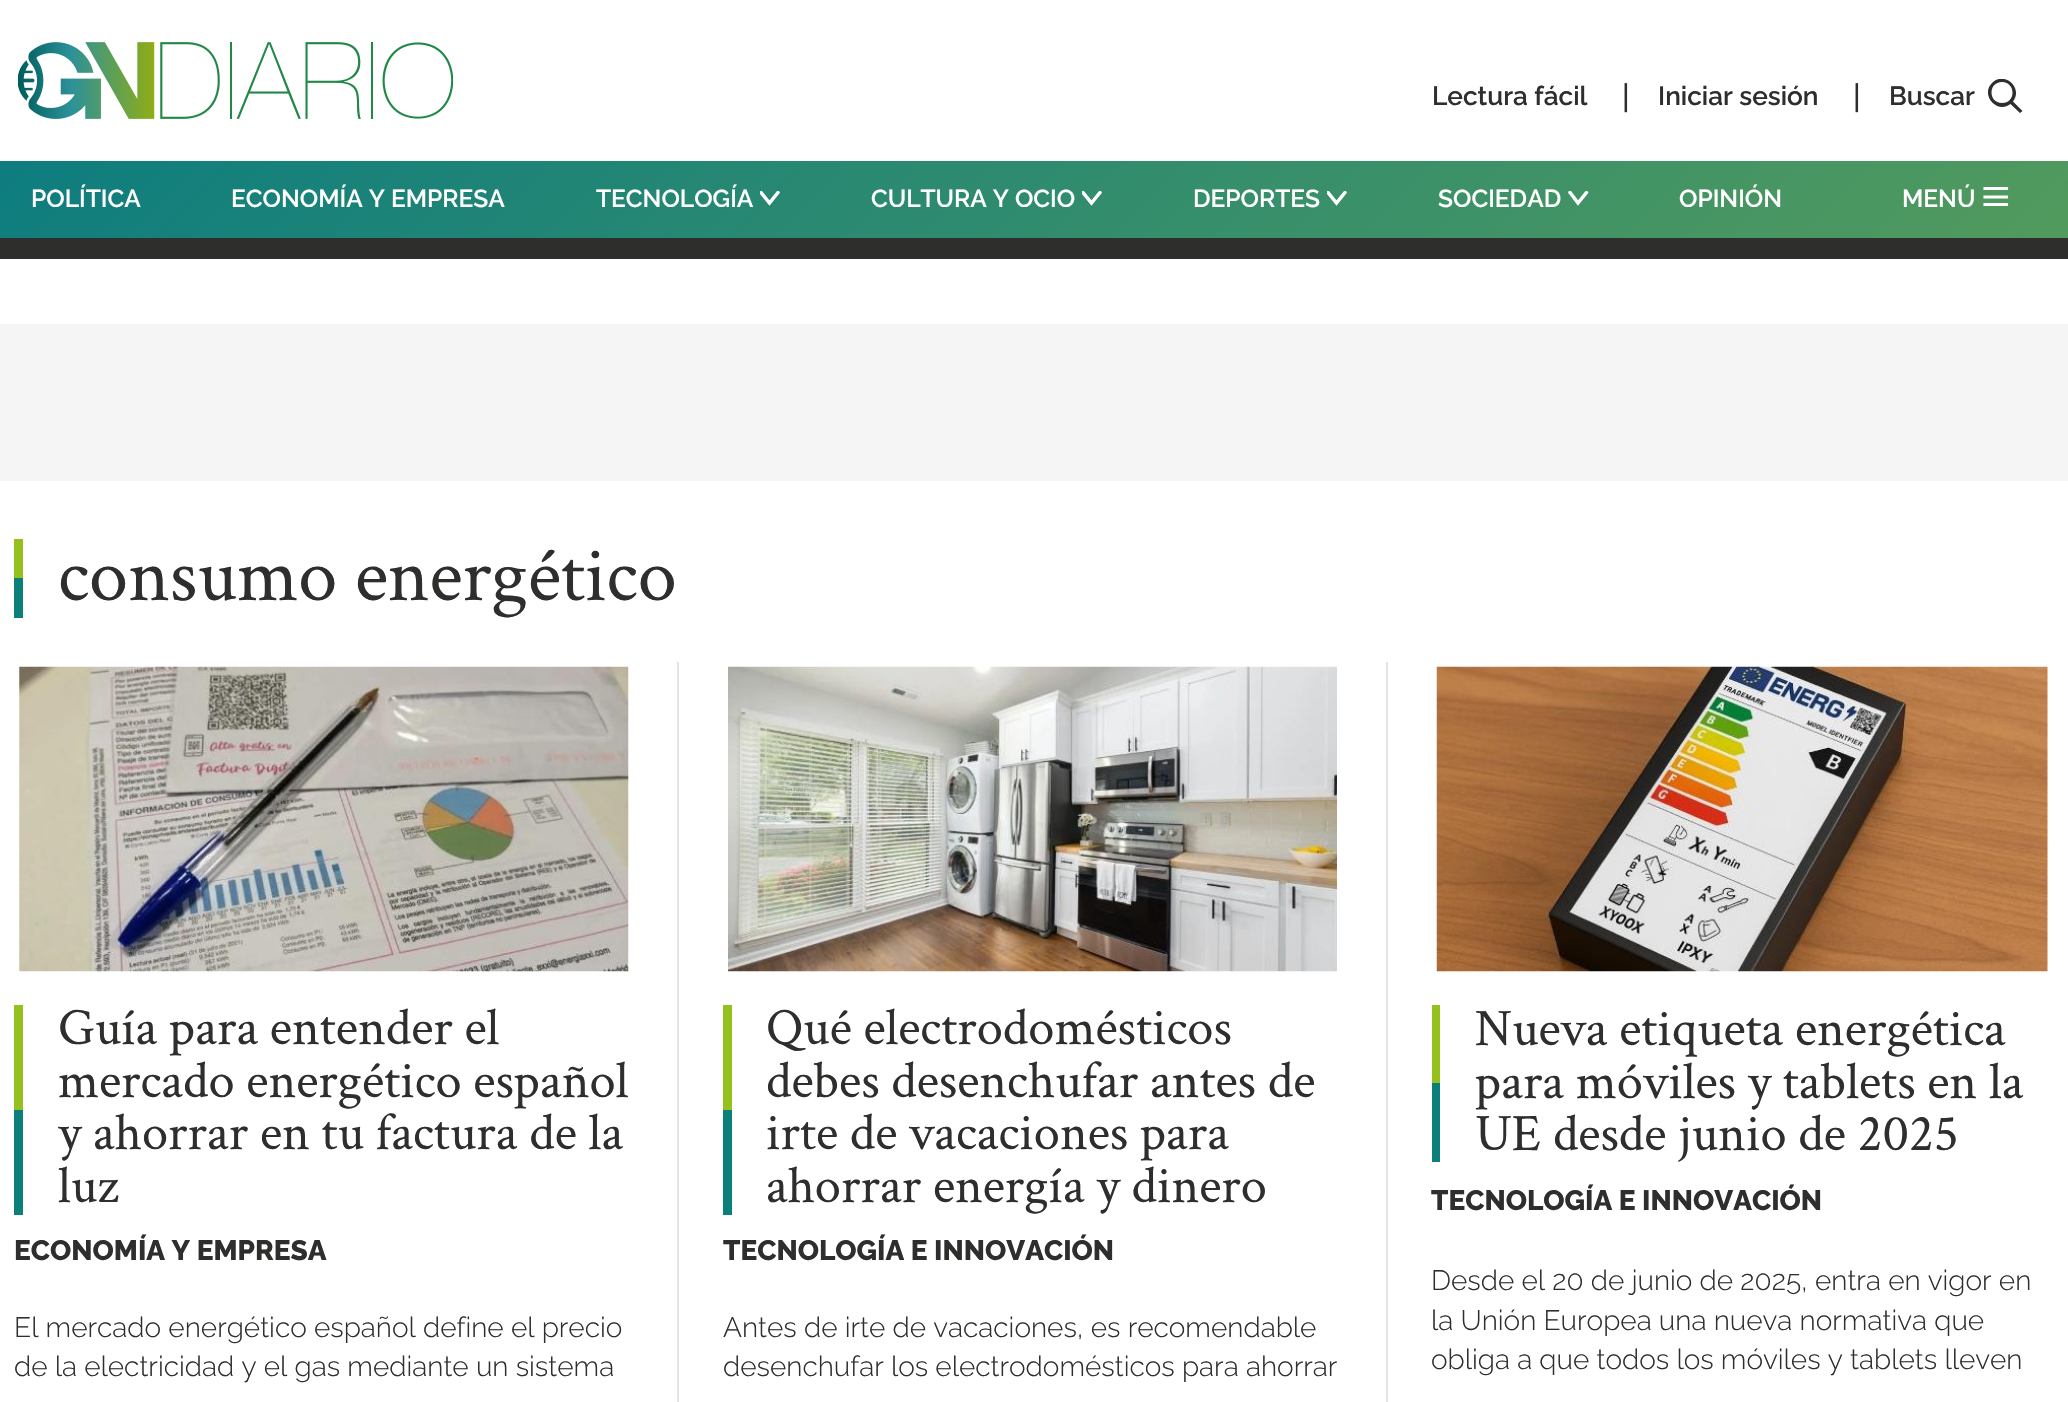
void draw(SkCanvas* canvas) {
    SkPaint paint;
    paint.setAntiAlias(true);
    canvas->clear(0xFFFFFFFF);
    canvas->drawImageRect(SkImages::DeferredFromEncodedData(SkData::MakeFromFileName("img1.png")), SkRect::MakeXYWH(18, 42, 435, 77), SkSamplingOptions());
    SkFont font1(fontMgr->matchFamilyStyle("Raleway", SkFontStyle(600, SkFontStyle::kNormal_Width, SkFontStyle::kUpright_Slant)), 26.25f);
    font1.setSubpixel(true);
    paint.setColor(0xFF2E2E2D);
    canvas->drawString("Lectura fácil", 1432, 105, font1, paint);
    SkFont font2(fontMgr->matchFamilyStyle("Raleway", SkFontStyle(500, SkFontStyle::kNormal_Width, SkFontStyle::kUpright_Slant)), 32);
    font2.setSubpixel(true);
    canvas->drawString("|", 1622, 108, font2, paint);
    canvas->drawString("Iniciar sesión", 1658, 105, font1, paint);
    canvas->drawString("|", 1853, 108, font2, paint);
    canvas->drawString("Buscar", 1889, 105, font1, paint);
    canvas->save();
    canvas->clipRect(SkRect::MakeXYWH(1988, 79, 35, 35));
    canvas->drawPath(SkPathBuilder().moveTo(2022.5f, 111).lineTo(2013, 101.5f).cubicTo(2023.5f, 88, 2004.5f, 70.5f, 1992, 83).cubicTo(1980, 95, 1997, 114.5f, 2010.5f, 104).lineTo(2020, 113).close().moveTo(2002, 103).cubicTo(1988, 103, 1988, 82, 2002, 82).cubicTo(2016, 82.5f, 2016, 103, 2002, 103).close().detach(), paint);
    canvas->restore();
    {
        const SkColor colors[] = {0xFF0E7D7F, 0xFF5D9F58, 0xFFA2BD36};
        const float stops[] = {0, 0.7f, 1};
        const SkPoint ends[] = {{856, -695}, {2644, 1094}};
        paint.setShader(SkGradientShader::MakeLinear(ends, colors, stops, 3, SkTileMode::kClamp));
        paint.setAlpha(255);
    }
    canvas->drawRect(SkRect::MakeXYWH(0, 161, 2068, 77), paint);
    SkFont font3(fontMgr->matchFamilyStyle("Raleway", SkFontStyle(600, SkFontStyle::kNormal_Width, SkFontStyle::kUpright_Slant)), 24.5f);
    font3.setSubpixel(true);
    paint.setShader(nullptr);
    paint.setColor(0xFFFFFFFF);
    canvas->drawString("POLÍTICA", 31, 207, font3, paint);
    canvas->drawString("ECONOMÍA Y EMPRESA", 231, 207, font3, paint);
    canvas->drawString("TECNOLOGÍA", 596, 207, font3, paint);
    canvas->save();
    canvas->clipRect(SkRect::MakeXYWH(760, 191, 21, 16));
    paint.setStyle(SkPaint::kStroke_Style);
    paint.setStrokeWidth(3.5f);
    paint.setStrokeCap(SkPaint::kRound_Cap);
    canvas->drawPath(SkPathBuilder().moveTo(761, 192.5f).lineTo(769.5f, 203).lineTo(778, 192.5f).detach(), paint);
    canvas->restore();
    paint.setStyle(SkPaint::kFill_Style);
    canvas->drawString("CULTURA Y OCIO", 871, 207, font3, paint);
    canvas->save();
    canvas->clipRect(SkRect::MakeXYWH(1082, 191, 21, 16));
    paint.setStyle(SkPaint::kStroke_Style);
    canvas->drawPath(SkPathBuilder().moveTo(1083, 192.5f).lineTo(1091.5f, 203).lineTo(1100, 192.5f).detach(), paint);
    canvas->restore();
    paint.setStyle(SkPaint::kFill_Style);
    canvas->drawString("DEPORTES", 1193, 207, font3, paint);
    canvas->save();
    canvas->clipRect(SkRect::MakeXYWH(1327, 191, 21, 16));
    paint.setStyle(SkPaint::kStroke_Style);
    canvas->drawPath(SkPathBuilder().moveTo(1328, 192.5f).lineTo(1336.5f, 203).lineTo(1345, 192.5f).detach(), paint);
    canvas->restore();
    paint.setStyle(SkPaint::kFill_Style);
    canvas->drawString("SOCIEDAD", 1438, 207, font3, paint);
    canvas->save();
    canvas->clipRect(SkRect::MakeXYWH(1568, 191, 21, 16));
    paint.setStyle(SkPaint::kStroke_Style);
    canvas->drawPath(SkPathBuilder().moveTo(1570, 192.5f).lineTo(1578, 203).lineTo(1586.5f, 192.5f).detach(), paint);
    canvas->restore();
    paint.setStyle(SkPaint::kFill_Style);
    canvas->drawString("OPINIÓN", 1679, 207, font3, paint);
    canvas->drawString("MENÚ", 1902, 207, font3, paint);
    paint.setStyle(SkPaint::kStroke_Style);
    paint.setStrokeWidth(3.1f);
    paint.setStrokeCap(SkPaint::kSquare_Cap);
    canvas->drawPath(SkPathBuilder().moveTo(1985, 197).lineTo(2006.5f, 197).moveTo(1985, 204.5f).lineTo(2006.5f, 204.5f).moveTo(1985, 188.5f).lineTo(2006.5f, 188.5f).detach(), paint);
    paint.setStyle(SkPaint::kFill_Style);
    paint.setColor(0xFF2E2E2D);
    canvas->drawRect(SkRect::MakeXYWH(0, 238, 2068, 21), paint);
    paint.setColor(0xFFF5F5F5);
    canvas->drawRect(SkRect::MakeXYWH(0, 324, 2068, 157), paint);
    paint.setColor(0xFF95C11F);
    canvas->drawRect(SkRect::MakeXYWH(14, 539, 9, 39), paint);
    SkFont font4(fontMgr->matchFamilyStyle("Crimson Text", SkFontStyle::Normal()), 78.5f);
    font4.setSubpixel(true);
    paint.setColor(0xFF2E2E2D);
    canvas->drawString("consumo energético", 58, 600, font4, paint);
    paint.setColor(0xFF0B7F79);
    canvas->drawRect(SkRect::MakeXYWH(14, 578, 9, 40), paint);
    paint.setColor(0xFFE4E4E4);
    canvas->drawRect(SkRect::MakeXYWH(677, 662, 2, 740), paint);
    canvas->drawImageRect(SkImages::DeferredFromEncodedData(SkData::MakeFromFileName("img2.png")), SkRect::MakeXYWH(19, 666, 610, 306), SkSamplingOptions());
    paint.setColor(0xFF95C11F);
    canvas->drawRect(SkRect::MakeXYWH(14, 1005, 9, 105), paint);
    SkFont font5(fontMgr->matchFamilyStyle("Crimson Text", SkFontStyle::Normal()), 52.5f);
    font5.setSubpixel(true);
    paint.setColor(0xFF2E2E2D);
    canvas->drawString("Guía para entender el", 58, 1044, font5, paint);
    canvas->drawString("mercado energético español", 58, 1097, font5, paint);
    paint.setColor(0xFF0B7F79);
    canvas->drawRect(SkRect::MakeXYWH(14, 1110, 9, 105), paint);
    paint.setColor(0xFF2E2E2D);
    canvas->drawString("y ahorrar en tu factura de la", 58, 1149, font5, paint);
    canvas->drawString("luz", 58, 1202, font5, paint);
    SkFont font6(fontMgr->matchFamilyStyle("Raleway", SkFontStyle(800, SkFontStyle::kNormal_Width, SkFontStyle::kUpright_Slant)), 28);
    font6.setSubpixel(true);
    canvas->drawString("ECONOMÍA Y EMPRESA", 14, 1260, font6, paint);
    SkFont font7(fontMgr->matchFamilyStyle("Raleway", SkFontStyle(300, SkFontStyle::kNormal_Width, SkFontStyle::kUpright_Slant)), 28);
    font7.setSubpixel(true);
    canvas->drawString("El mercado energético español define el precio", 14, 1337, font7, paint);
    canvas->drawString("de la electricidad y el gas mediante un sistema", 14, 1376, font7, paint);
    paint.setColor(0xFFE4E4E4);
    canvas->drawRect(SkRect::MakeXYWH(1386, 662, 2, 740), paint);
    canvas->drawImageRect(SkImages::DeferredFromEncodedData(SkData::MakeFromFileName("img3.png")), SkRect::MakeXYWH(728, 666, 609, 306), SkSamplingOptions());
    paint.setColor(0xFF95C11F);
    canvas->drawRect(SkRect::MakeXYWH(723, 1005, 9, 105), paint);
    paint.setColor(0xFF2E2E2D);
    canvas->drawString("Qué electrodomésticos", 766, 1044, font5, paint);
    canvas->drawString("debes desenchufar antes de", 766, 1097, font5, paint);
    paint.setColor(0xFF0B7F79);
    canvas->drawRect(SkRect::MakeXYWH(723, 1110, 9, 105), paint);
    paint.setColor(0xFF2E2E2D);
    canvas->drawString("irte de vacaciones para", 766, 1149, font5, paint);
    canvas->drawString("ahorrar energía y dinero", 766, 1202, font5, paint);
    canvas->drawString("TECNOLOGÍA E INNOVACIÓN", 723, 1260, font6, paint);
    canvas->drawString("Antes de irte de vacaciones, es recomendable", 723, 1337, font7, paint);
    canvas->drawString("desenchufar los electrodomésticos para ahorrar", 723, 1376, font7, paint);
    canvas->drawImageRect(SkImages::DeferredFromEncodedData(SkData::MakeFromFileName("img4.png")), SkRect::MakeXYWH(1436, 666, 612, 306), SkSamplingOptions());
    paint.setColor(0xFF95C11F);
    canvas->drawRect(SkRect::MakeXYWH(1432, 1005, 8, 78), paint);
    paint.setColor(0xFF2E2E2D);
    canvas->drawString("Nueva etiqueta energética", 1475, 1045, font5, paint);
    paint.setColor(0xFF0B7F79);
    canvas->drawRect(SkRect::MakeXYWH(1432, 1083, 8, 79), paint);
    paint.setColor(0xFF2E2E2D);
    canvas->drawString("para móviles y tablets en la", 1475, 1098, font5, paint);
    canvas->drawString("UE desde junio de 2025", 1475, 1150, font5, paint);
    canvas->drawString("TECNOLOGÍA E INNOVACIÓN", 1431, 1210, font6, paint);
    canvas->drawString("Desde el 20 de junio de 2025, entra en vigor en", 1431, 1290, font7, paint);
    canvas->drawString("la Unión Europea una nueva normativa que", 1431, 1330, font7, paint);
    canvas->drawString("obliga a que todos los móviles y tablets lleven", 1431, 1369, font7, paint);
}
